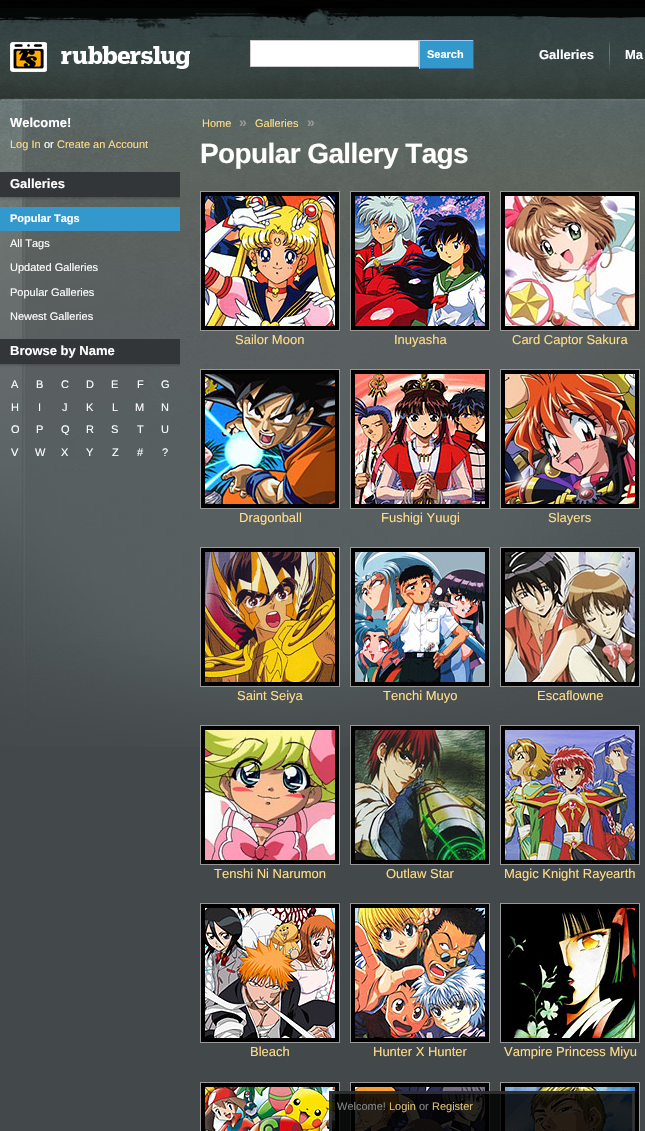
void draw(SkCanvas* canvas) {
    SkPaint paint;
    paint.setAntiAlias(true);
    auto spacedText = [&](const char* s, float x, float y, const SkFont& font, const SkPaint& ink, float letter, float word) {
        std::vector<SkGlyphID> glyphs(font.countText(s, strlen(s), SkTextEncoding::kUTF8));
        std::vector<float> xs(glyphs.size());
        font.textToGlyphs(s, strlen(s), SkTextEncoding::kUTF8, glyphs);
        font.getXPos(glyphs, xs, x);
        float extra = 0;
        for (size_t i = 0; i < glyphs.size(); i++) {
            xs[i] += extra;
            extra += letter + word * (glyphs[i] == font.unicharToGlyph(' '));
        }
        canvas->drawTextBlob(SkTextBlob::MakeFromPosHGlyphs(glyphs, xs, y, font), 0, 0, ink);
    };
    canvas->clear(0xFF43494A);
    canvas->drawImageRect(SkImages::DeferredFromEncodedData(SkData::MakeFromFileName("img1.png")), SkRect::MakeXYWH(0, 0, 645, 747), SkSamplingOptions());
    canvas->drawImageRect(SkImages::DeferredFromEncodedData(SkData::MakeFromFileName("img2.png")), SkRect::MakeXYWH(10, 42, 180, 30), SkSamplingOptions());
    paint.setColor(0xFFFFFFFF);
    canvas->drawRect(SkRect::MakeXYWH(250.5f, 40.5f, 168, 26), paint);
    paint.setStyle(SkPaint::kStroke_Style);
    paint.setStrokeWidth(1);
    paint.setColor(0xFFCCCCCC);
    canvas->drawRect(SkRect::MakeXYWH(250.5f, 40.5f, 168, 26), paint);
    paint.setStyle(SkPaint::kFill_Style);
    paint.setColor(0xFF3399CC);
    canvas->drawRect(SkRect::MakeXYWH(420, 41, 53, 27), paint);
    paint.setColor(0xFF99CCFF);
    canvas->drawRect(SkRect::MakeXYWH(419, 40, 55, 1), paint);
    paint.setColor(0xFF336699);
    canvas->drawRect(SkRect::MakeXYWH(473, 40, 1, 29), paint);
    canvas->drawRect(SkRect::MakeXYWH(419, 68, 55, 1), paint);
    paint.setColor(0xFF99CCFF);
    canvas->drawRect(SkRect::MakeXYWH(419, 40, 1, 29), paint);
    SkFont font1(fontMgr->matchFamilyStyle("Liberation Sans", SkFontStyle::Bold()), 11);
    font1.setSubpixel(true);
    paint.setColor(0xFFFFFFFF);
    canvas->drawString("Search", 427, 58, font1, paint);
    SkFont font2(fontMgr->matchFamilyStyle("Liberation Sans", SkFontStyle::Bold()), 13);
    font2.setSubpixel(true);
    canvas->drawString("Galleries", 539, 59, font2, paint);
    canvas->drawImageRect(SkImages::DeferredFromEncodedData(SkData::MakeFromFileName("img3.png")), SkRect::MakeXYWH(609, 42, 1, 29), SkSamplingOptions());
    canvas->drawString("Ma", 625, 59, font2, paint);
    canvas->drawString("Welcome!", 10, 127, font2, paint);
    SkFont font3(fontMgr->matchFamilyStyle("Liberation Sans", SkFontStyle::Normal()), 11);
    font3.setSubpixel(true);
    paint.setColor(0xFFFFDD88);
    canvas->drawString("Log In", 10, 148, font3, paint);
    paint.setColor(0xFFFFFFFF);
    canvas->drawString("or", 44, 148, font3, paint);
    paint.setColor(0xFFFFDD88);
    canvas->drawString("Create an Account", 57, 148, font3, paint);
    canvas->drawImageRect(SkImages::DeferredFromEncodedData(SkData::MakeFromFileName("img4.png")), SkRect::MakeXYWH(0, 172, 180, 28), SkSamplingOptions());
    paint.setColor(0xFFFFFFFF);
    canvas->drawString("Galleries", 10, 188, font2, paint);
    paint.setColor(0xFF3399CC);
    canvas->drawRect(SkRect::MakeXYWH(0, 207, 180, 24), paint);
    paint.setColor(0xFFFFFFFF);
    canvas->drawString("Popular Tags", 10, 222, font1, paint);
    canvas->drawString("All Tags", 10, 247, font3, paint);
    canvas->drawString("Updated Galleries", 10, 271, font3, paint);
    canvas->drawString("Popular Galleries", 10, 296, font3, paint);
    canvas->drawString("Newest Galleries", 10, 320, font3, paint);
    canvas->drawImageRect(SkImages::DeferredFromEncodedData(SkData::MakeFromFileName("img5.png")), SkRect::MakeXYWH(0, 339, 180, 28), SkSamplingOptions());
    canvas->drawString("Browse by Name", 10, 355, font2, paint);
    canvas->drawString("A", 11, 388, font3, paint);
    canvas->drawString("B", 36, 388, font3, paint);
    canvas->drawString("C", 61, 388, font3, paint);
    canvas->drawString("D", 86, 388, font3, paint);
    canvas->drawString("E", 111, 388, font3, paint);
    canvas->drawString("F", 137, 388, font3, paint);
    canvas->drawString("G", 161, 388, font3, paint);
    canvas->drawString("H", 11, 411, font3, paint);
    canvas->drawString("I", 38, 411, font3, paint);
    canvas->drawString("J", 62, 411, font3, paint);
    canvas->drawString("K", 86, 411, font3, paint);
    canvas->drawString("L", 112, 411, font3, paint);
    canvas->drawString("M", 135, 411, font3, paint);
    canvas->drawString("N", 161, 411, font3, paint);
    canvas->drawString("O", 11, 433, font3, paint);
    canvas->drawString("P", 36, 433, font3, paint);
    canvas->drawString("Q", 61, 433, font3, paint);
    canvas->drawString("R", 86, 433, font3, paint);
    canvas->drawString("S", 111, 433, font3, paint);
    canvas->drawString("T", 137, 433, font3, paint);
    canvas->drawString("U", 161, 433, font3, paint);
    canvas->drawString("V", 11, 456, font3, paint);
    canvas->drawString("W", 35, 456, font3, paint);
    canvas->drawString("X", 61, 456, font3, paint);
    canvas->drawString("Y", 86, 456, font3, paint);
    canvas->drawString("Z", 112, 456, font3, paint);
    canvas->drawString("#", 137, 456, font3, paint);
    canvas->drawString("?", 162, 456, font3, paint);
    paint.setColor(0xFFFFDD88);
    canvas->drawString("Home", 202, 127, font3, paint);
    SkFont font4(fontMgr->matchFamilyStyle("Liberation Sans", SkFontStyle::Bold()), 14);
    font4.setSubpixel(true);
    paint.setColor(0xFF999999);
    canvas->drawString("»", 239, 127, font4, paint);
    paint.setColor(0xFFFFDD88);
    canvas->drawString("Galleries", 255, 127, font3, paint);
    paint.setColor(0xFF999999);
    canvas->drawString("»", 307, 127, font4, paint);
    SkFont font5(fontMgr->matchFamilyStyle("Liberation Sans", SkFontStyle::Bold()), 28);
    font5.setSubpixel(true);
    paint.setColor(0xFFFFFFFF);
    spacedText("Popular Gallery Tags", 200, 163, font5, paint, -0.6f, 0);
    paint.setColor(0xFF000000);
    canvas->drawRect(SkRect::MakeXYWH(200.5f, 191.5f, 139, 139), paint);
    paint.setStyle(SkPaint::kStroke_Style);
    paint.setColor(0xFF999999);
    canvas->drawRect(SkRect::MakeXYWH(200.5f, 191.5f, 139, 139), paint);
    canvas->drawImageRect(SkImages::DeferredFromEncodedData(SkData::MakeFromFileName("img6.png")), SkRect::MakeXYWH(205, 196, 130, 130), SkSamplingOptions());
    SkFont font6(fontMgr->matchFamilyStyle("Liberation Sans", SkFontStyle::Normal()), 13);
    font6.setSubpixel(true);
    paint.setStyle(SkPaint::kFill_Style);
    paint.setColor(0xFFFFDD88);
    canvas->drawString("Sailor Moon", 235, 344, font6, paint);
    paint.setColor(0xFF000000);
    canvas->drawRect(SkRect::MakeXYWH(350.5f, 191.5f, 139, 139), paint);
    paint.setStyle(SkPaint::kStroke_Style);
    paint.setColor(0xFF999999);
    canvas->drawRect(SkRect::MakeXYWH(350.5f, 191.5f, 139, 139), paint);
    canvas->drawImageRect(SkImages::DeferredFromEncodedData(SkData::MakeFromFileName("img7.png")), SkRect::MakeXYWH(355, 196, 130, 130), SkSamplingOptions());
    paint.setStyle(SkPaint::kFill_Style);
    paint.setColor(0xFFFFDD88);
    canvas->drawString("Inuyasha", 394, 344, font6, paint);
    paint.setColor(0xFF000000);
    canvas->drawRect(SkRect::MakeXYWH(500.5f, 191.5f, 139, 139), paint);
    paint.setStyle(SkPaint::kStroke_Style);
    paint.setColor(0xFF999999);
    canvas->drawRect(SkRect::MakeXYWH(500.5f, 191.5f, 139, 139), paint);
    canvas->drawImageRect(SkImages::DeferredFromEncodedData(SkData::MakeFromFileName("img8.png")), SkRect::MakeXYWH(505, 196, 130, 130), SkSamplingOptions());
    paint.setStyle(SkPaint::kFill_Style);
    paint.setColor(0xFFFFDD88);
    canvas->drawString("Card Captor Sakura", 512, 344, font6, paint);
    paint.setColor(0xFF000000);
    canvas->drawRect(SkRect::MakeXYWH(200.5f, 369.5f, 139, 139), paint);
    paint.setStyle(SkPaint::kStroke_Style);
    paint.setColor(0xFF999999);
    canvas->drawRect(SkRect::MakeXYWH(200.5f, 369.5f, 139, 139), paint);
    canvas->drawImageRect(SkImages::DeferredFromEncodedData(SkData::MakeFromFileName("img9.png")), SkRect::MakeXYWH(205, 374, 130, 130), SkSamplingOptions());
    paint.setStyle(SkPaint::kFill_Style);
    paint.setColor(0xFFFFDD88);
    canvas->drawString("Dragonball", 239, 522, font6, paint);
    paint.setColor(0xFF000000);
    canvas->drawRect(SkRect::MakeXYWH(350.5f, 369.5f, 139, 139), paint);
    paint.setStyle(SkPaint::kStroke_Style);
    paint.setColor(0xFF999999);
    canvas->drawRect(SkRect::MakeXYWH(350.5f, 369.5f, 139, 139), paint);
    canvas->drawImageRect(SkImages::DeferredFromEncodedData(SkData::MakeFromFileName("img10.png")), SkRect::MakeXYWH(355, 374, 130, 130), SkSamplingOptions());
    paint.setStyle(SkPaint::kFill_Style);
    paint.setColor(0xFFFFDD88);
    canvas->drawString("Fushigi Yuugi", 381, 522, font6, paint);
    paint.setColor(0xFF000000);
    canvas->drawRect(SkRect::MakeXYWH(500.5f, 369.5f, 139, 139), paint);
    paint.setStyle(SkPaint::kStroke_Style);
    paint.setColor(0xFF999999);
    canvas->drawRect(SkRect::MakeXYWH(500.5f, 369.5f, 139, 139), paint);
    canvas->drawImageRect(SkImages::DeferredFromEncodedData(SkData::MakeFromFileName("img11.png")), SkRect::MakeXYWH(505, 374, 130, 130), SkSamplingOptions());
    paint.setStyle(SkPaint::kFill_Style);
    paint.setColor(0xFFFFDD88);
    canvas->drawString("Slayers", 548, 522, font6, paint);
    paint.setColor(0xFF000000);
    canvas->drawRect(SkRect::MakeXYWH(200.5f, 547.5f, 139, 139), paint);
    paint.setStyle(SkPaint::kStroke_Style);
    paint.setColor(0xFF999999);
    canvas->drawRect(SkRect::MakeXYWH(200.5f, 547.5f, 139, 139), paint);
    canvas->drawImageRect(SkImages::DeferredFromEncodedData(SkData::MakeFromFileName("img12.png")), SkRect::MakeXYWH(205, 552, 130, 130), SkSamplingOptions());
    paint.setStyle(SkPaint::kFill_Style);
    paint.setColor(0xFFFFDD88);
    canvas->drawString("Saint Seiya", 237, 700, font6, paint);
    paint.setColor(0xFF000000);
    canvas->drawRect(SkRect::MakeXYWH(350.5f, 547.5f, 139, 139), paint);
    paint.setStyle(SkPaint::kStroke_Style);
    paint.setColor(0xFF999999);
    canvas->drawRect(SkRect::MakeXYWH(350.5f, 547.5f, 139, 139), paint);
    canvas->drawImageRect(SkImages::DeferredFromEncodedData(SkData::MakeFromFileName("img13.png")), SkRect::MakeXYWH(355, 552, 130, 130), SkSamplingOptions());
    paint.setStyle(SkPaint::kFill_Style);
    paint.setColor(0xFFFFDD88);
    canvas->drawString("Tenchi Muyo", 383, 700, font6, paint);
    paint.setColor(0xFF000000);
    canvas->drawRect(SkRect::MakeXYWH(500.5f, 547.5f, 139, 139), paint);
    paint.setStyle(SkPaint::kStroke_Style);
    paint.setColor(0xFF999999);
    canvas->drawRect(SkRect::MakeXYWH(500.5f, 547.5f, 139, 139), paint);
    canvas->drawImageRect(SkImages::DeferredFromEncodedData(SkData::MakeFromFileName("img14.png")), SkRect::MakeXYWH(505, 552, 130, 130), SkSamplingOptions());
    paint.setStyle(SkPaint::kFill_Style);
    paint.setColor(0xFFFFDD88);
    canvas->drawString("Escaflowne", 537, 700, font6, paint);
    paint.setColor(0xFF000000);
    canvas->drawRect(SkRect::MakeXYWH(200.5f, 725.5f, 139, 139), paint);
    paint.setStyle(SkPaint::kStroke_Style);
    paint.setColor(0xFF999999);
    canvas->drawRect(SkRect::MakeXYWH(200.5f, 725.5f, 139, 139), paint);
    canvas->drawImageRect(SkImages::DeferredFromEncodedData(SkData::MakeFromFileName("img15.png")), SkRect::MakeXYWH(205, 730, 130, 130), SkSamplingOptions());
    paint.setStyle(SkPaint::kFill_Style);
    paint.setColor(0xFFFFDD88);
    canvas->drawString("Tenshi Ni Narumon", 214, 878, font6, paint);
    paint.setColor(0xFF000000);
    canvas->drawRect(SkRect::MakeXYWH(350.5f, 725.5f, 139, 139), paint);
    paint.setStyle(SkPaint::kStroke_Style);
    paint.setColor(0xFF999999);
    canvas->drawRect(SkRect::MakeXYWH(350.5f, 725.5f, 139, 139), paint);
    canvas->drawImageRect(SkImages::DeferredFromEncodedData(SkData::MakeFromFileName("img16.png")), SkRect::MakeXYWH(355, 730, 130, 130), SkSamplingOptions());
    paint.setStyle(SkPaint::kFill_Style);
    paint.setColor(0xFFFFDD88);
    canvas->drawString("Outlaw Star", 386, 878, font6, paint);
    paint.setColor(0xFF000000);
    canvas->drawRect(SkRect::MakeXYWH(500.5f, 725.5f, 139, 139), paint);
    paint.setStyle(SkPaint::kStroke_Style);
    paint.setColor(0xFF999999);
    canvas->drawRect(SkRect::MakeXYWH(500.5f, 725.5f, 139, 139), paint);
    canvas->drawImageRect(SkImages::DeferredFromEncodedData(SkData::MakeFromFileName("img17.png")), SkRect::MakeXYWH(505, 730, 130, 130), SkSamplingOptions());
    paint.setStyle(SkPaint::kFill_Style);
    paint.setColor(0xFFFFDD88);
    canvas->drawString("Magic Knight Rayearth", 504, 878, font6, paint);
    paint.setColor(0xFF000000);
    canvas->drawRect(SkRect::MakeXYWH(200.5f, 903.5f, 139, 139), paint);
    paint.setStyle(SkPaint::kStroke_Style);
    paint.setColor(0xFF999999);
    canvas->drawRect(SkRect::MakeXYWH(200.5f, 903.5f, 139, 139), paint);
    canvas->drawImageRect(SkImages::DeferredFromEncodedData(SkData::MakeFromFileName("img18.png")), SkRect::MakeXYWH(205, 908, 130, 130), SkSamplingOptions());
    paint.setStyle(SkPaint::kFill_Style);
    paint.setColor(0xFFFFDD88);
    canvas->drawString("Bleach", 250, 1056, font6, paint);
    paint.setColor(0xFF000000);
    canvas->drawRect(SkRect::MakeXYWH(350.5f, 903.5f, 139, 139), paint);
    paint.setStyle(SkPaint::kStroke_Style);
    paint.setColor(0xFF999999);
    canvas->drawRect(SkRect::MakeXYWH(350.5f, 903.5f, 139, 139), paint);
    canvas->drawImageRect(SkImages::DeferredFromEncodedData(SkData::MakeFromFileName("img19.png")), SkRect::MakeXYWH(355, 908, 130, 130), SkSamplingOptions());
    paint.setStyle(SkPaint::kFill_Style);
    paint.setColor(0xFFFFDD88);
    canvas->drawString("Hunter X Hunter", 373, 1056, font6, paint);
    paint.setColor(0xFF000000);
    canvas->drawRect(SkRect::MakeXYWH(500.5f, 903.5f, 139, 139), paint);
    paint.setStyle(SkPaint::kStroke_Style);
    paint.setColor(0xFF999999);
    canvas->drawRect(SkRect::MakeXYWH(500.5f, 903.5f, 139, 139), paint);
    canvas->drawImageRect(SkImages::DeferredFromEncodedData(SkData::MakeFromFileName("img20.png")), SkRect::MakeXYWH(506, 908, 129, 130), SkSamplingOptions());
    paint.setStyle(SkPaint::kFill_Style);
    paint.setColor(0xFFFFDD88);
    canvas->drawString("Vampire Princess Miyu", 504, 1056, font6, paint);
    paint.setColor(0xFF000000);
    canvas->drawRect(SkRect::MakeXYWH(200.5f, 1082.5f, 139, 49), paint);
    paint.setStyle(SkPaint::kStroke_Style);
    paint.setColor(0xFF999999);
    canvas->drawRect(SkRect::MakeXYWH(200.5f, 1082.5f, 139, 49), paint);
    canvas->drawImageRect(SkImages::DeferredFromEncodedData(SkData::MakeFromFileName("img21.png")), SkRect::MakeXYWH(205, 1087, 130, 44), SkSamplingOptions());
    paint.setStyle(SkPaint::kFill_Style);
    paint.setColor(0xFF000000);
    canvas->drawRect(SkRect::MakeXYWH(350.5f, 1082.5f, 139, 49), paint);
    paint.setStyle(SkPaint::kStroke_Style);
    paint.setColor(0xFF999999);
    canvas->drawRect(SkRect::MakeXYWH(350.5f, 1082.5f, 139, 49), paint);
    canvas->drawImageRect(SkImages::DeferredFromEncodedData(SkData::MakeFromFileName("img22.png")), SkRect::MakeXYWH(355, 1087, 130, 44), SkSamplingOptions());
    paint.setStyle(SkPaint::kFill_Style);
    paint.setColor(0xFF000000);
    canvas->drawRect(SkRect::MakeXYWH(500.5f, 1082.5f, 139, 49), paint);
    paint.setStyle(SkPaint::kStroke_Style);
    paint.setColor(0xFF999999);
    canvas->drawRect(SkRect::MakeXYWH(500.5f, 1082.5f, 139, 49), paint);
    canvas->drawImageRect(SkImages::DeferredFromEncodedData(SkData::MakeFromFileName("img23.png")), SkRect::MakeXYWH(505, 1087, 130, 44), SkSamplingOptions());
    paint.setStyle(SkPaint::kFill_Style);
    paint.setColor(0xD9000000);
    canvas->drawRect(SkRect::MakeXYWH(329, 1091, 306, 40), paint);
    paint.setColor(0xD9333333);
    canvas->drawRect(SkRect::MakeXYWH(329, 1091, 306, 3), paint);
    canvas->drawRect(SkRect::MakeXYWH(632, 1091, 3, 40), paint);
    canvas->drawRect(SkRect::MakeXYWH(329, 1091, 3, 40), paint);
    paint.setColor(0xFF858584);
    canvas->drawString("Welcome!", 337, 1110, font3, paint);
    paint.setColor(0xFFDCBF76);
    canvas->drawString("Login", 389, 1110, font3, paint);
    paint.setColor(0xFF858584);
    canvas->drawString("or", 419, 1110, font3, paint);
    paint.setColor(0xFFDCBF76);
    canvas->drawString("Register", 432, 1110, font3, paint);
}
